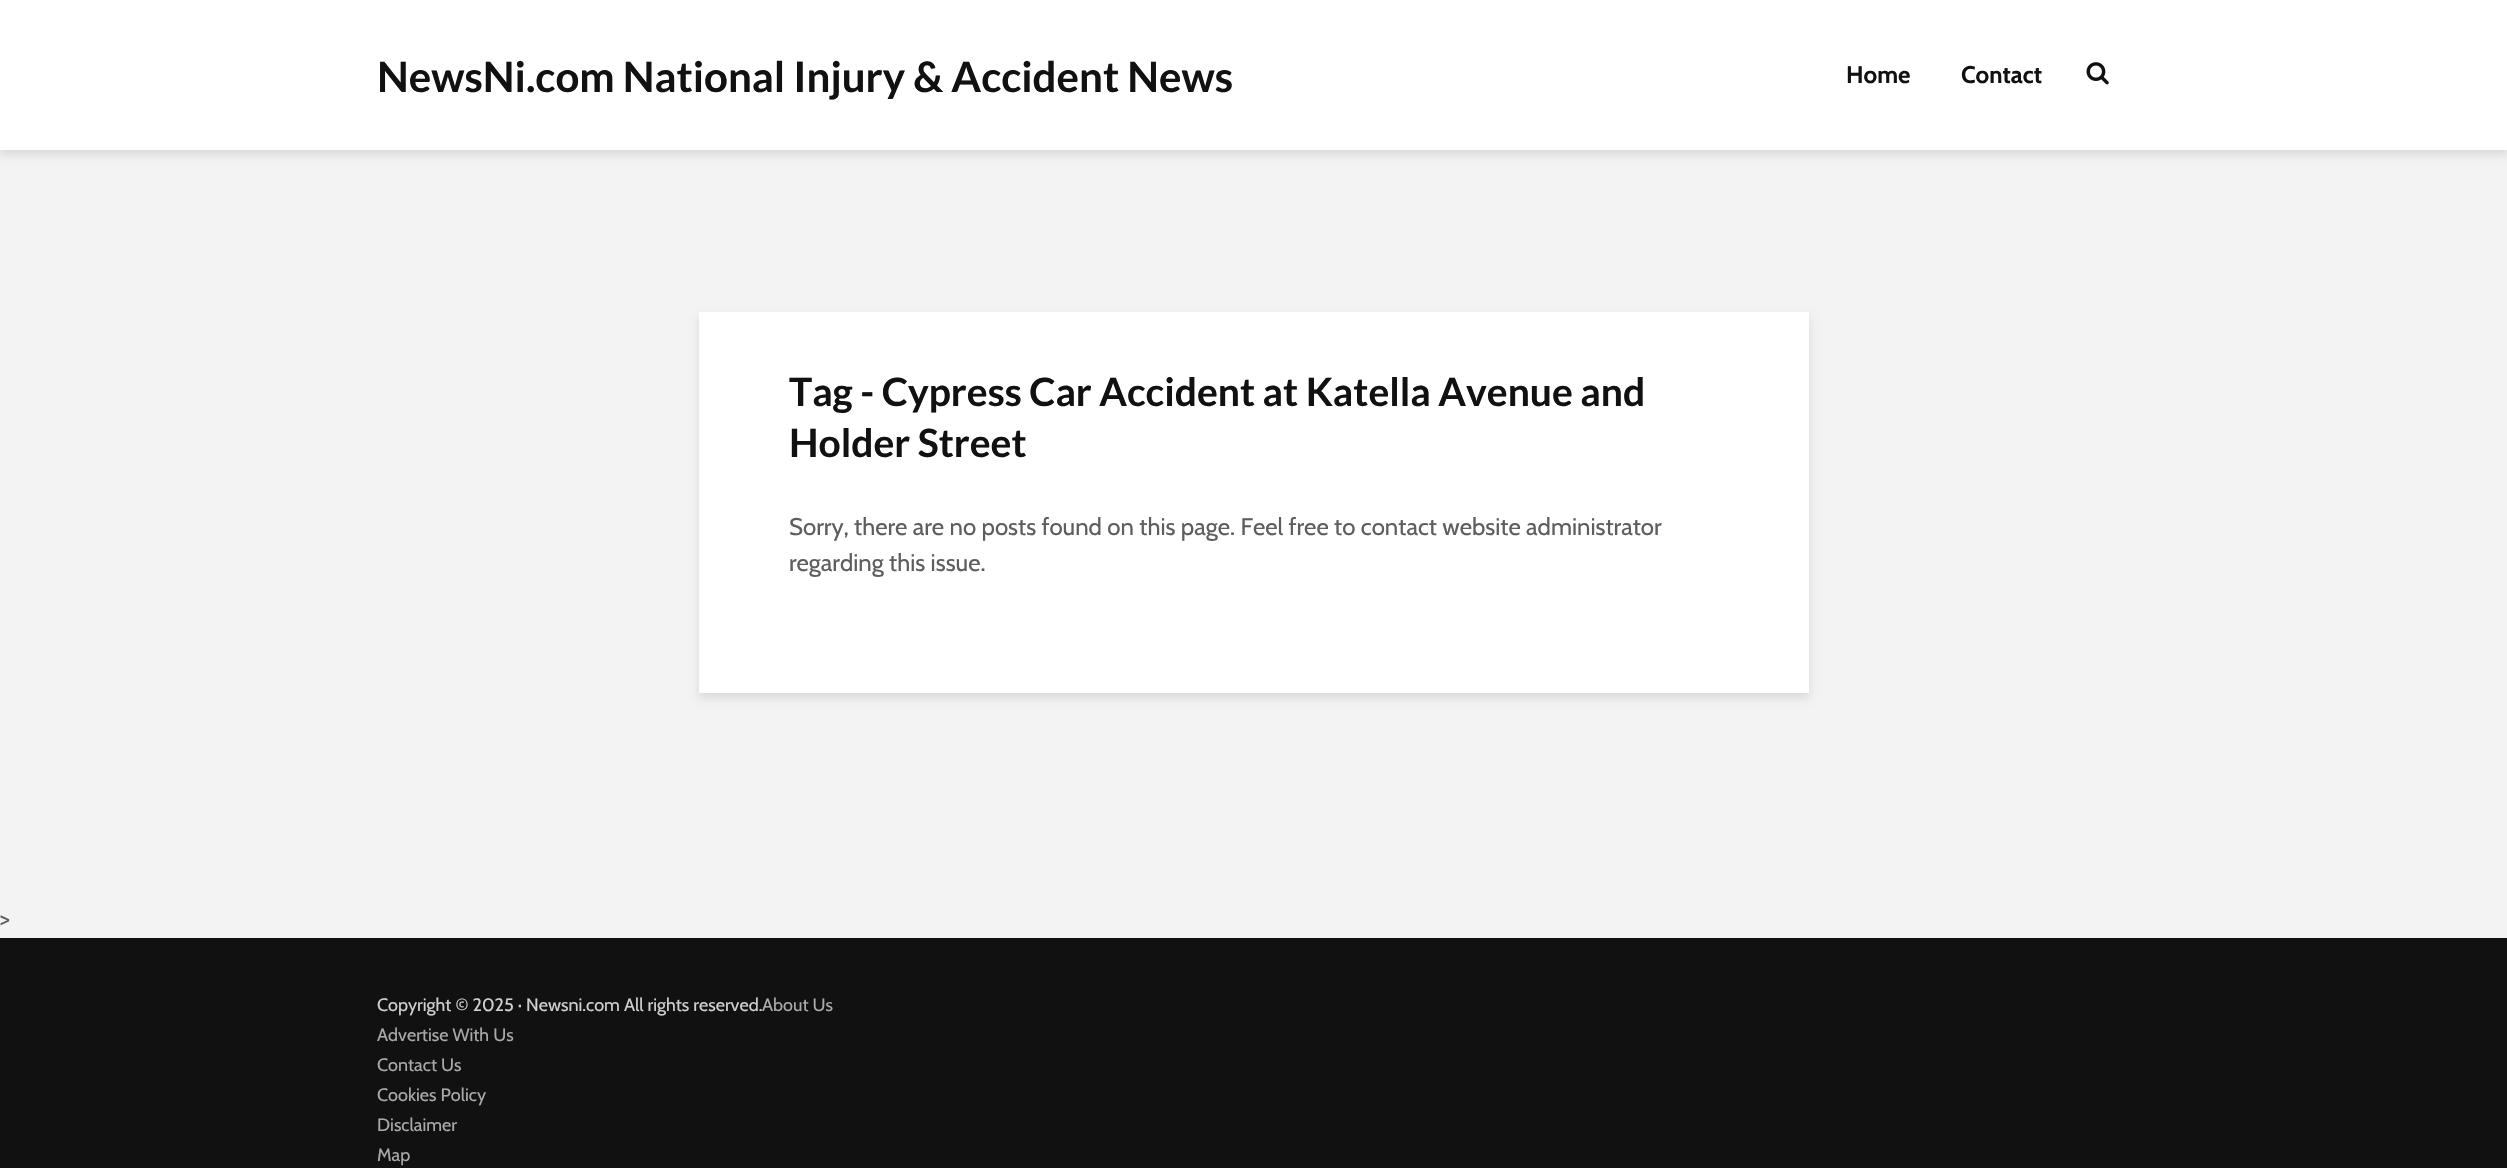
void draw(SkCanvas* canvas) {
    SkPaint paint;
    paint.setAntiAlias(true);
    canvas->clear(0xFFF3F3F3);
    paint.setColor(0x1A000101);
    paint.setMaskFilter(SkMaskFilter::MakeBlur(kNormal_SkBlurStyle, 4));
    canvas->drawRect(SkRect::MakeXYWH(0, 5, 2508, 150), paint);
    paint.setMaskFilter(nullptr);
    paint.setColor(0xFFFFFFFF);
    canvas->drawRect(SkRect::MakeXYWH(0, 0, 2507, 150), paint);
    SkFont font1(fontMgr->matchFamilyStyle("Lato", SkFontStyle::Bold()), 42);
    font1.setSubpixel(true);
    paint.setColor(0xFF111111);
    canvas->drawString("NewsNi.com National Injury & Accident News", 377, 92, font1, paint);
    SkFont font2(fontMgr->matchFamilyStyle("Cabin", SkFontStyle::Bold()), 24);
    font2.setSubpixel(true);
    canvas->drawString("Home", 1846, 83, font2, paint);
    canvas->drawString("Contact", 1961, 83, font2, paint);
    canvas->drawImageRect(SkImages::DeferredFromEncodedData(SkData::MakeFromFileName("img1.png")), SkRect::MakeXYWH(2086, 62, 23, 23), SkSamplingOptions());
    paint.setColor(0x1A000101);
    paint.setMaskFilter(SkMaskFilter::MakeBlur(kNormal_SkBlurStyle, 4));
    canvas->drawRect(SkRect::MakeXYWH(699, 317, 1110, 381), paint);
    paint.setMaskFilter(nullptr);
    paint.setColor(0xFFFFFFFF);
    canvas->drawRect(SkRect::MakeXYWH(699, 312, 1110, 381), paint);
    SkFont font3(fontMgr->matchFamilyStyle("Lato", SkFontStyle::Bold()), 39);
    font3.setSubpixel(true);
    paint.setColor(0xFF111111);
    canvas->drawString("Tag - Cypress Car Accident at Katella Avenue and", 789, 406, font3, paint);
    canvas->drawString("Holder Street", 789, 457, font3, paint);
    SkFont font4(fontMgr->matchFamilyStyle("Cabin", SkFontStyle::Normal()), 24);
    font4.setSubpixel(true);
    paint.setColor(0xFF5E5E5E);
    canvas->drawString("Sorry, there are no posts found on this page. Feel free to contact website administrator", 789, 535, font4, paint);
    canvas->drawString("regarding this issue.", 789, 571, font4, paint);
    canvas->drawString(">", 0, 927, font4, paint);
    paint.setColor(0xFF111111);
    canvas->drawRect(SkRect::MakeXYWH(0, 938, 2507, 230), paint);
    SkFont font5(fontMgr->matchFamilyStyle("Cabin", SkFontStyle::Normal()), 18);
    font5.setSubpixel(true);
    paint.setColor(0xFFA9A9A9);
    canvas->drawString("About Us", 762, 1011, font5, paint);
    canvas->drawString("Advertise With Us", 377, 1041, font5, paint);
    canvas->drawString("Contact Us", 377, 1071, font5, paint);
    canvas->drawString("Cookies Policy", 377, 1101, font5, paint);
    canvas->drawString("Disclaimer", 377, 1131, font5, paint);
    canvas->drawString("Map", 377, 1161, font5, paint);
    paint.setColor(0xFFCFCFCF);
    canvas->drawString("Copyright © 2025 · Newsni.com All rights reserved.", 377, 1011, font5, paint);
}
